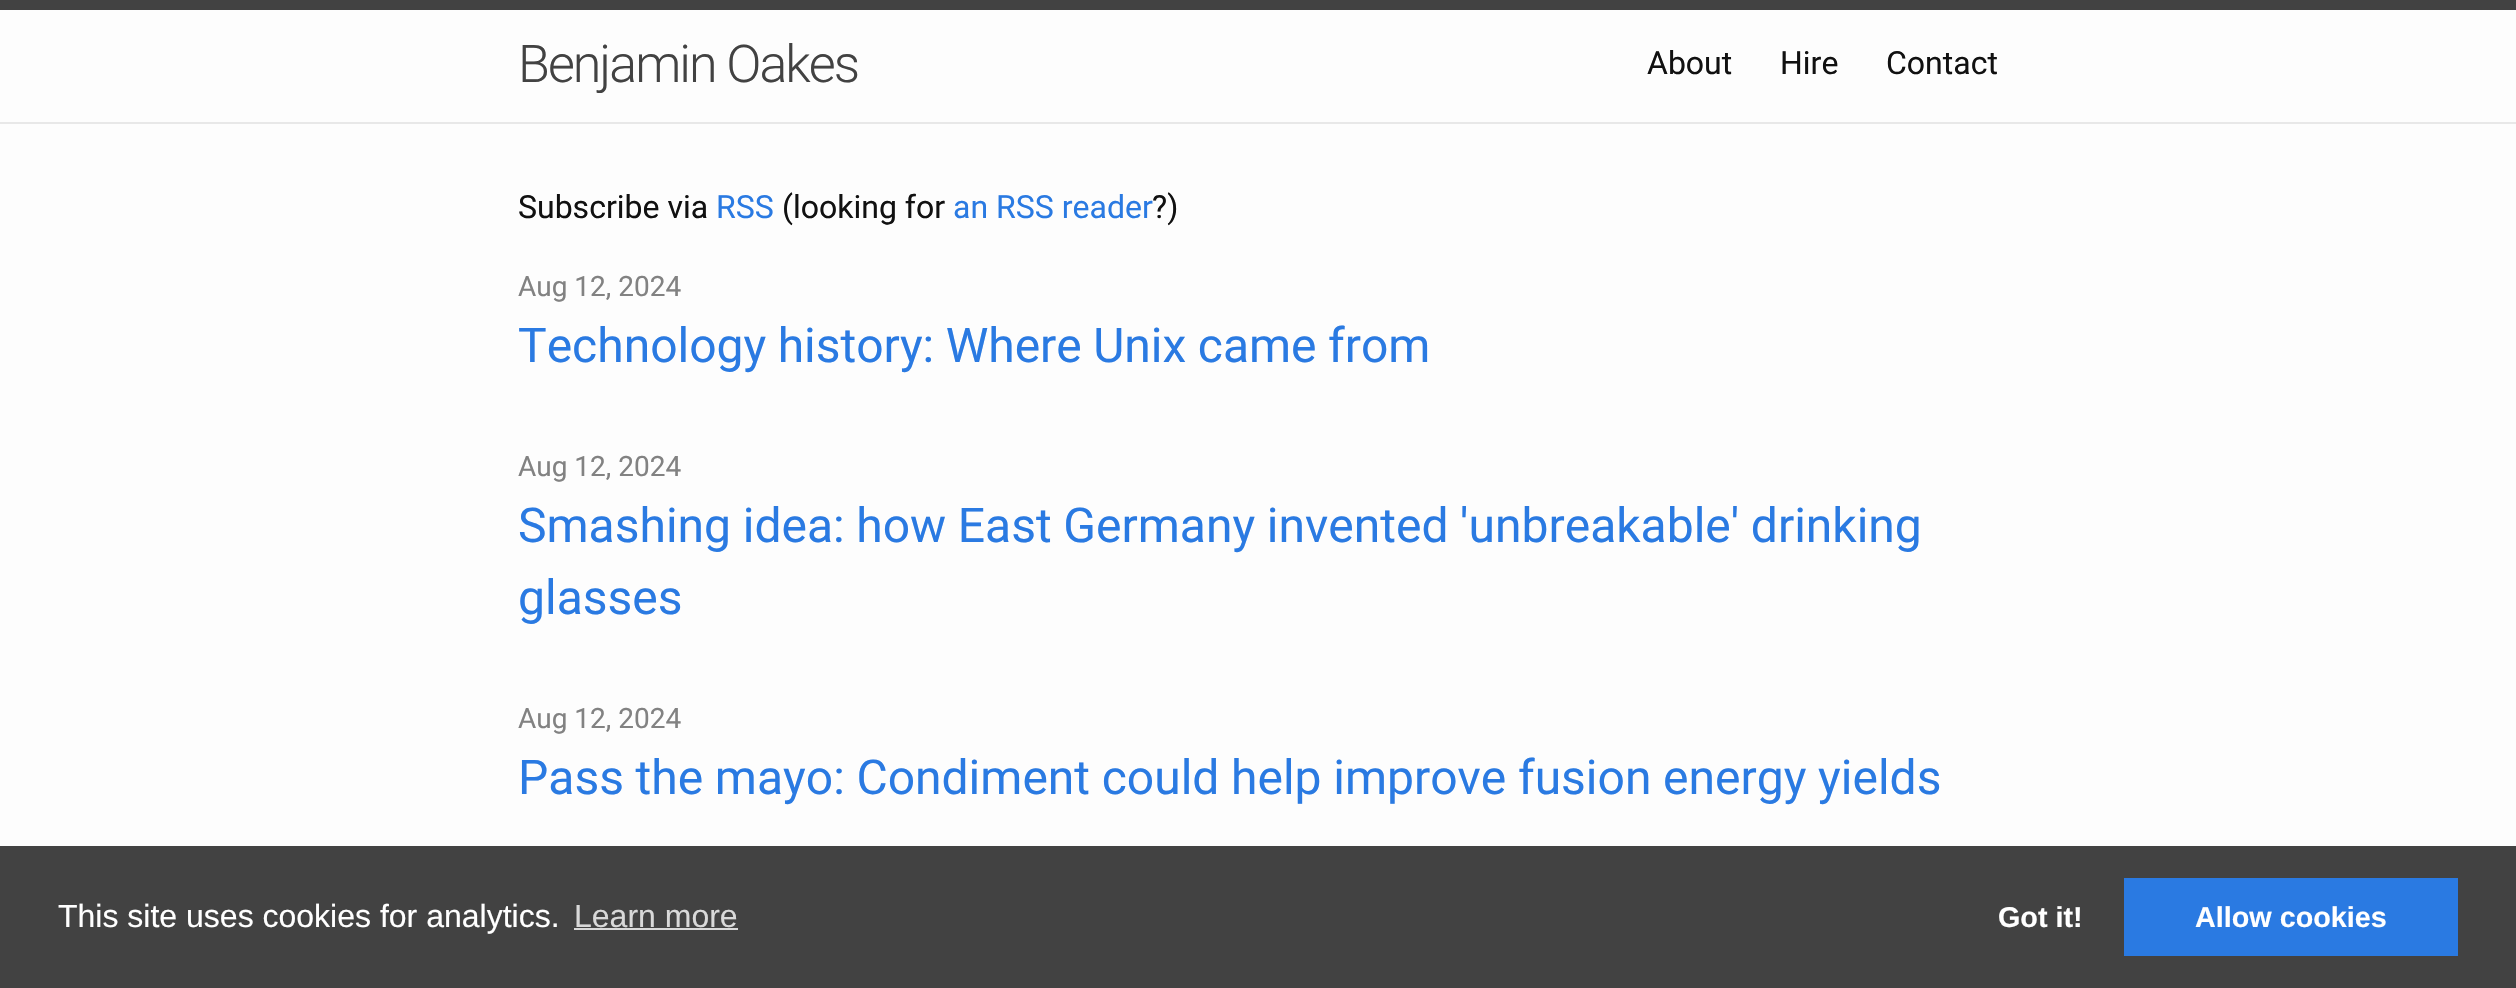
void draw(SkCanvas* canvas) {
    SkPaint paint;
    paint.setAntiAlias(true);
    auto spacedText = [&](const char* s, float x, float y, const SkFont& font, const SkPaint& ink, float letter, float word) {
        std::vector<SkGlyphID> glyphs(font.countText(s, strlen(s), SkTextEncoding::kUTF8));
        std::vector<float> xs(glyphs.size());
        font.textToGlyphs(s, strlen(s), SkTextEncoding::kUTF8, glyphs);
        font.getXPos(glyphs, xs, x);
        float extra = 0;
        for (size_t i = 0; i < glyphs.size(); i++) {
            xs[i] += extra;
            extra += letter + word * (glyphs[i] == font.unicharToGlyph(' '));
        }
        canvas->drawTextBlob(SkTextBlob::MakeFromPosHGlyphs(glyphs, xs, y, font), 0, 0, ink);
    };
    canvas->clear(0xFFFDFDFD);
    paint.setColor(0xFF424242);
    canvas->drawRect(SkRect::MakeXYWH(0, 0, 2516, 10), paint);
    paint.setColor(0xFFE8E8E8);
    canvas->drawRect(SkRect::MakeXYWH(0, 122, 2516, 2), paint);
    SkFont font1(fontMgr->matchFamilyStyle("Roboto", SkFontStyle(300, SkFontStyle::kNormal_Width, SkFontStyle::kUpright_Slant)), 52);
    font1.setSubpixel(true);
    paint.setColor(0xFF424242);
    spacedText("Benjamin Oakes", 518, 82, font1, paint, -2, 0);
    SkFont font2(fontMgr->matchFamilyStyle("Roboto", SkFontStyle::Normal()), 32);
    font2.setSubpixel(true);
    paint.setColor(0xFF111111);
    canvas->drawString("About", 1647, 74, font2, paint);
    canvas->drawString("Hire", 1780, 74, font2, paint);
    canvas->drawString("Contact", 1886, 74, font2, paint);
    canvas->drawString("Subscribe via", 518, 218, font2, paint);
    paint.setColor(0xFF2A7AE2);
    canvas->drawString("RSS", 716, 218, font2, paint);
    paint.setColor(0xFF111111);
    canvas->drawString("(looking for", 782, 218, font2, paint);
    paint.setColor(0xFF2A7AE2);
    canvas->drawString("an RSS reader", 953, 218, font2, paint);
    paint.setColor(0xFF111111);
    canvas->drawString("?)", 1152, 218, font2, paint);
    SkFont font3(fontMgr->matchFamilyStyle("Roboto", SkFontStyle::Normal()), 28);
    font3.setSubpixel(true);
    paint.setColor(0xFF828282);
    canvas->drawString("Aug 12, 2024", 518, 296, font3, paint);
    SkFont font4(fontMgr->matchFamilyStyle("Roboto", SkFontStyle::Normal()), 48);
    font4.setSubpixel(true);
    paint.setColor(0xFF2A7AE2);
    spacedText("Technology history: Where Unix came from", 518, 362, font4, paint, 0, -0.5f);
    paint.setColor(0xFF828282);
    canvas->drawString("Aug 12, 2024", 518, 476, font3, paint);
    paint.setColor(0xFF2A7AE2);
    spacedText("Smashing idea: how East Germany invented 'unbreakable' drinking", 518, 542, font4, paint, 0, -0.25f);
    canvas->drawString("glasses", 518, 614, font4, paint);
    paint.setColor(0xFF828282);
    canvas->drawString("Aug 12, 2024", 518, 728, font3, paint);
    paint.setColor(0xFF2A7AE2);
    spacedText("Pass the mayo: Condiment could help improve fusion energy yields", 518, 794, font4, paint, 0, -0.25f);
    paint.setColor(0xFF424242);
    canvas->drawRect(SkRect::MakeXYWH(0, 846, 2516, 142), paint);
    SkFont font5(fontMgr->matchFamilyStyle("Liberation Sans", SkFontStyle::Normal()), 32);
    font5.setSubpixel(true);
    paint.setColor(0xFFFFFFFF);
    canvas->drawString("This site uses cookies for analytics.", 58, 927, font5, paint);
    paint.setColor(0xFFD9D9D9);
    canvas->drawString("Learn more", 574, 927, font5, paint);
    canvas->drawRect(SkRect::MakeXYWH(574, 928, 164, 2), paint);
    SkFont font6(fontMgr->matchFamilyStyle("Liberation Sans", SkFontStyle::Bold()), 28.75f);
    font6.setSubpixel(true);
    paint.setColor(0xFFFFFFFF);
    canvas->drawString("Got it!", 1998, 927, font6, paint);
    paint.setColor(0xFF2A7AE2);
    canvas->drawRect(SkRect::MakeXYWH(2124, 878, 334, 78), paint);
    paint.setColor(0xFFFFFFFF);
    canvas->drawString("Allow cookies", 2195, 927, font6, paint);
}
